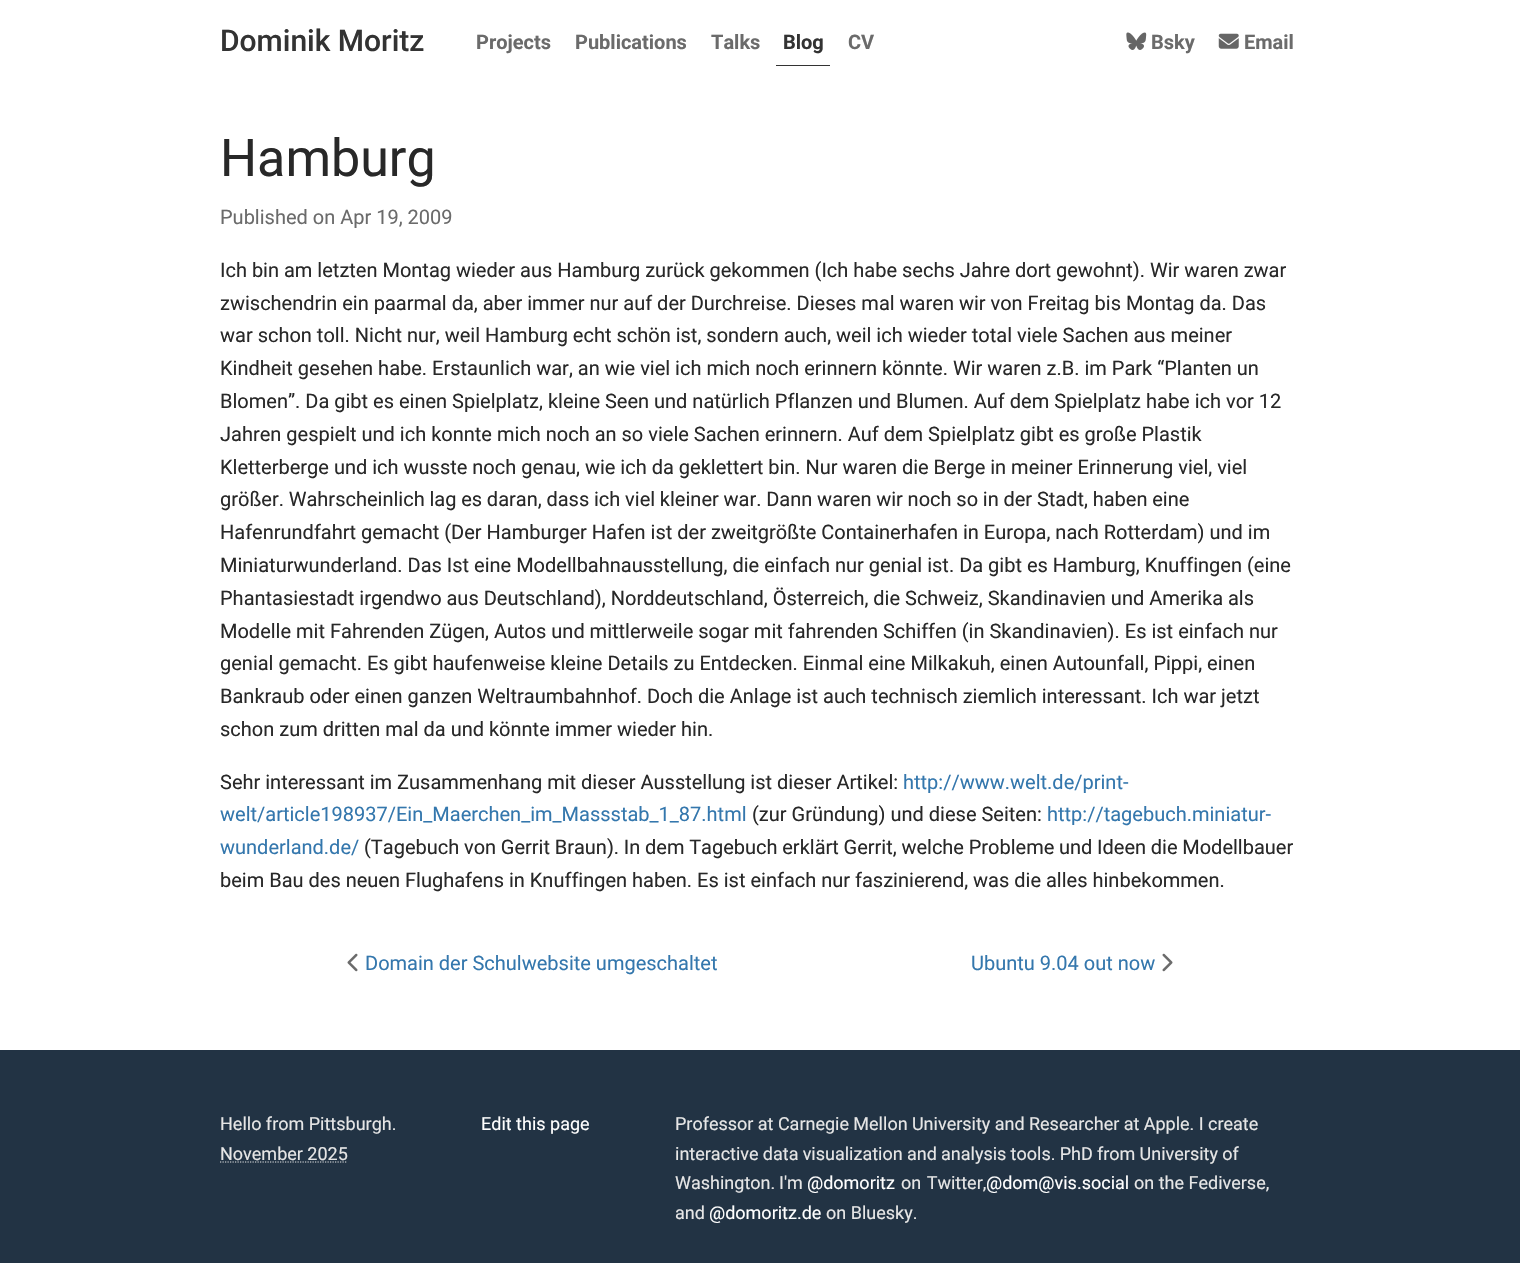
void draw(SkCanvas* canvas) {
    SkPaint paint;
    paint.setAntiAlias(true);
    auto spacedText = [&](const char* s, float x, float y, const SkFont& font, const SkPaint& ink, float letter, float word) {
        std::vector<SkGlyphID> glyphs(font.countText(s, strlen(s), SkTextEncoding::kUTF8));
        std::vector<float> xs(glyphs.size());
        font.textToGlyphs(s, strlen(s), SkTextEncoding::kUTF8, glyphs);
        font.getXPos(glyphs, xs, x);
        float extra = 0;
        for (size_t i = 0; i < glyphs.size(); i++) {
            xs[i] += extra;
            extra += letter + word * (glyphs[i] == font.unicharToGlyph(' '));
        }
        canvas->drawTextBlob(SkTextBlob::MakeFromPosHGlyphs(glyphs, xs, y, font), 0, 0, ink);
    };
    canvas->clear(0xFFFFFFFF);
    SkFont font1(fontMgr->matchFamilyStyle("Roboto", SkFontStyle(500, SkFontStyle::kNormal_Width, SkFontStyle::kUpright_Slant)), 30);
    font1.setSubpixel(true);
    paint.setColor(0xFF333333);
    canvas->drawString("Dominik Moritz", 220, 51, font1, paint);
    SkFont font2(fontMgr->matchFamilyStyle("Roboto", SkFontStyle::Bold()), 20);
    font2.setSubpixel(true);
    paint.setColor(0xFF6B6B6B);
    canvas->drawString("Projects", 476, 49, font2, paint);
    canvas->drawString("Publications", 575, 49, font2, paint);
    canvas->drawString("Talks", 711, 49, font2, paint);
    paint.setColor(0xFF333333);
    canvas->drawRect(SkRect::MakeXYWH(776, 65, 54, 1), paint);
    canvas->drawString("Blog", 783, 49, font2, paint);
    paint.setColor(0xFF6B6B6B);
    canvas->drawString("CV", 848, 49, font2, paint);
    canvas->drawImageRect(SkImages::DeferredFromEncodedData(SkData::MakeFromFileName("img1.png")), SkRect::MakeXYWH(1126, 32, 21, 18), SkSamplingOptions());
    canvas->drawString("Bsky", 1151, 49, font2, paint);
    canvas->drawImageRect(SkImages::DeferredFromEncodedData(SkData::MakeFromFileName("img2.png")), SkRect::MakeXYWH(1218, 33, 21, 16), SkSamplingOptions());
    canvas->drawString("Email", 1244, 49, font2, paint);
    SkFont font3(fontMgr->matchFamilyStyle("Roboto", SkFontStyle::Normal()), 52);
    font3.setSubpixel(true);
    paint.setColor(0xFF282828);
    canvas->drawString("Hamburg", 220, 176, font3, paint);
    SkFont font4(fontMgr->matchFamilyStyle("Roboto", SkFontStyle::Normal()), 20);
    font4.setSubpixel(true);
    paint.setColor(0xFF6B6B6B);
    canvas->drawString("Published on Apr 19, 2009", 220, 224, font4, paint);
    paint.setColor(0xFF282828);
    canvas->drawString("Ich bin am letzten Montag wieder aus Hamburg zurück gekommen (Ich habe sechs Jahre dort gewohnt). Wir waren zwar", 220, 277, font4, paint);
    canvas->drawString("zwischendrin ein paarmal da, aber immer nur auf der Durchreise. Dieses mal waren wir von Freitag bis Montag da. Das", 220, 310, font4, paint);
    canvas->drawString("war schon toll. Nicht nur, weil Hamburg echt schön ist, sondern auch, weil ich wieder total viele Sachen aus meiner", 220, 342, font4, paint);
    canvas->drawString("Kindheit gesehen habe. Erstaunlich war, an wie viel ich mich noch erinnern könnte. Wir waren z.B. im Park “Planten un", 220, 375, font4, paint);
    canvas->drawString("Blomen”. Da gibt es einen Spielplatz, kleine Seen und natürlich Pflanzen und Blumen. Auf dem Spielplatz habe ich vor 12", 220, 408, font4, paint);
    canvas->drawString("Jahren gespielt und ich konnte mich noch an so viele Sachen erinnern. Auf dem Spielplatz gibt es große Plastik", 220, 441, font4, paint);
    canvas->drawString("Kletterberge und ich wusste noch genau, wie ich da geklettert bin. Nur waren die Berge in meiner Erinnerung viel, viel", 220, 474, font4, paint);
    spacedText("größer. Wahrscheinlich lag es daran, dass ich viel kleiner war. Dann waren wir noch so in der Stadt, haben eine", 220, 506, font4, paint, 0, -0.2f);
    canvas->drawString("Hafenrundfahrt gemacht (Der Hamburger Hafen ist der zweitgrößte Containerhafen in Europa, nach Rotterdam) und im", 220, 539, font4, paint);
    canvas->drawString("Miniaturwunderland. Das Ist eine Modellbahnausstellung, die einfach nur genial ist. Da gibt es Hamburg, Knuffingen (eine", 220, 572, font4, paint);
    canvas->drawString("Phantasiestadt irgendwo aus Deutschland), Norddeutschland, Österreich, die Schweiz, Skandinavien und Amerika als", 220, 605, font4, paint);
    canvas->drawString("Modelle mit Fahrenden Zügen, Autos und mittlerweile sogar mit fahrenden Schiffen (in Skandinavien). Es ist einfach nur", 220, 638, font4, paint);
    canvas->drawString("genial gemacht. Es gibt haufenweise kleine Details zu Entdecken. Einmal eine Milkakuh, einen Autounfall, Pippi, einen", 220, 670, font4, paint);
    canvas->drawString("Bankraub oder einen ganzen Weltraumbahnhof. Doch die Anlage ist auch technisch ziemlich interessant. Ich war jetzt", 220, 703, font4, paint);
    canvas->drawString("schon zum dritten mal da und könnte immer wieder hin.", 220, 736, font4, paint);
    canvas->drawString("Sehr interessant im Zusammenhang mit dieser Ausstellung ist dieser Artikel:", 220, 789, font4, paint);
    paint.setColor(0xFF3477AD);
    canvas->drawString("http://www.welt.de/print-", 903, 789, font4, paint);
    canvas->drawString("welt/article198937/Ein_Maerchen_im_Massstab_1_87.html", 220, 821, font4, paint);
    paint.setColor(0xFF282828);
    canvas->drawString("(zur Gründung) und diese Seiten:", 752, 821, font4, paint);
    paint.setColor(0xFF3477AD);
    canvas->drawString("http://tagebuch.miniatur-", 1047, 821, font4, paint);
    canvas->drawString("wunderland.de/", 220, 854, font4, paint);
    paint.setColor(0xFF282828);
    spacedText("(Tagebuch von Gerrit Braun). In dem Tagebuch erklärt Gerrit, welche Probleme und Ideen die Modellbauer", 364, 854, font4, paint, 0, -0.25f);
    canvas->drawString("beim Bau des neuen Flughafens in Knuffingen haben. Es ist einfach nur faszinierend, was die alles hinbekommen.", 220, 887, font4, paint);
    canvas->drawImageRect(SkImages::DeferredFromEncodedData(SkData::MakeFromFileName("img3.png")), SkRect::MakeXYWH(347, 953, 11, 19), SkSamplingOptions());
    paint.setColor(0xFF3477AD);
    canvas->drawString("Domain der Schulwebsite umgeschaltet", 365, 970, font4, paint);
    canvas->drawString("Ubuntu 9.04 out now", 971, 970, font4, paint);
    canvas->drawImageRect(SkImages::DeferredFromEncodedData(SkData::MakeFromFileName("img4.png")), SkRect::MakeXYWH(1162, 953, 11, 19), SkSamplingOptions());
    paint.setColor(0xFF223344);
    canvas->drawRect(SkRect::MakeXYWH(0, 1050, 1520, 213), paint);
    SkFont font5(fontMgr->matchFamilyStyle("Roboto", SkFontStyle::Normal()), 18);
    font5.setSubpixel(true);
    paint.setColor(0xFFE6E6E6);
    canvas->drawString("Hello from Pittsburgh.", 220, 1130, font5, paint);
    canvas->drawString("November 2025", 220, 1160, font5, paint);
    paint.setStyle(SkPaint::kStroke_Style);
    paint.setStrokeWidth(1.2f);
    paint.setPathEffect(SkDashPathEffect::Make({{1.25f, 1.25f}}, 0));
    canvas->drawPath(SkPathBuilder().moveTo(220, 1162).lineTo(347.5f, 1162).detach(), paint);
    paint.setPathEffect(nullptr);
    paint.setStyle(SkPaint::kFill_Style);
    paint.setColor(0xFFFFFFFF);
    canvas->drawString("Edit this page", 481, 1130, font5, paint);
    paint.setColor(0xFFE6E6E6);
    spacedText("Professor at Carnegie Mellon University and Researcher at Apple. I create", 675, 1130, font5, paint, 0, -0.1f);
    spacedText("interactive data visualization and analysis tools. PhD from University of", 675, 1160, font5, paint, 0, -0.25f);
    canvas->drawString("Washington.", 675, 1189, font5, paint);
    canvas->drawString("I'm", 779, 1189, font5, paint);
    paint.setColor(0xFFFFFFFF);
    canvas->drawString("@domoritz", 807, 1189, font5, paint);
    paint.setColor(0xFFE6E6E6);
    spacedText("on Twitter,", 901, 1189, font5, paint, 0, 1);
    paint.setColor(0xFFFFFFFF);
    canvas->drawString("@dom@vis.social", 986, 1189, font5, paint);
    paint.setColor(0xFFE6E6E6);
    canvas->drawString("on the Fediverse,", 1134, 1189, font5, paint);
    canvas->drawString("and", 675, 1219, font5, paint);
    paint.setColor(0xFFFFFFFF);
    canvas->drawString("@domoritz.de", 709, 1219, font5, paint);
    paint.setColor(0xFFE6E6E6);
    canvas->drawString("on Bluesky.", 826, 1219, font5, paint);
}
